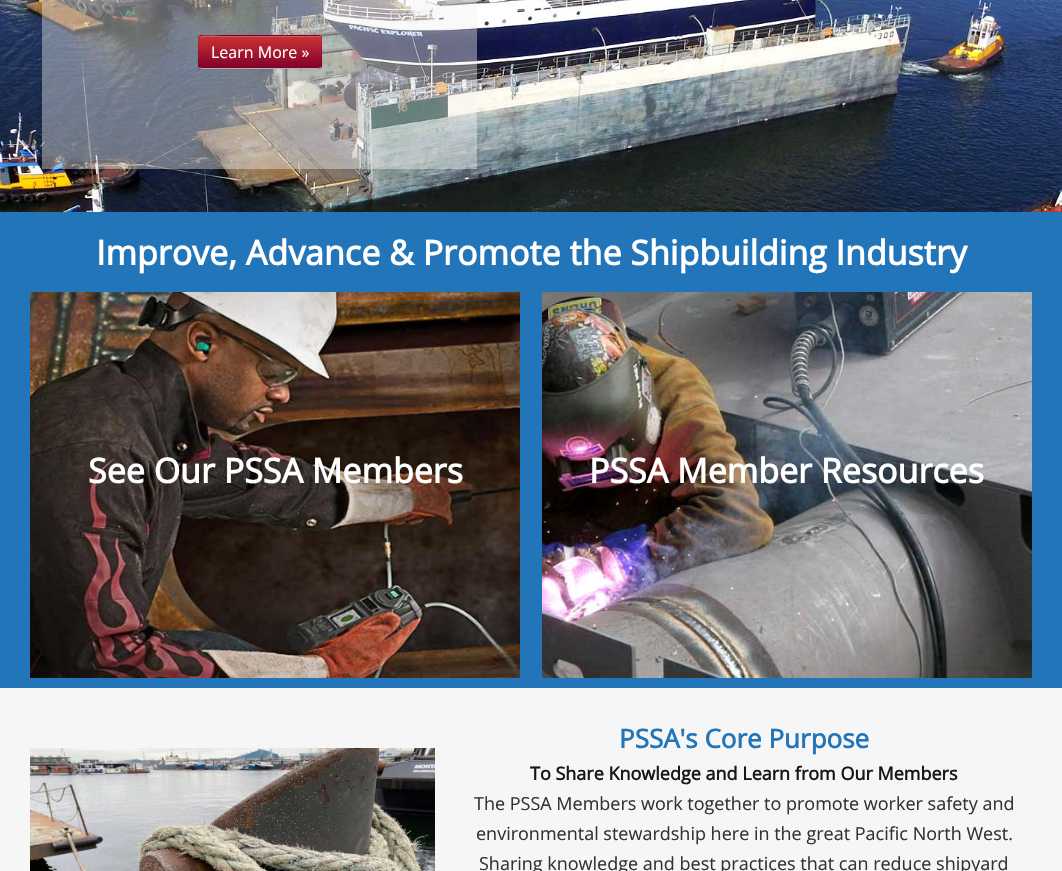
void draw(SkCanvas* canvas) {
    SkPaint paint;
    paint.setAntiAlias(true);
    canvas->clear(0xFFFFFFFF);
    canvas->drawImageRect(SkImages::DeferredFromEncodedData(SkData::MakeFromFileName("img1.png")), SkRect::MakeXYWH(0, 0, 1062, 212), SkSamplingOptions());
    paint.setColor(0x66F2F2F2);
    canvas->drawRect(SkRect::MakeXYWH(42, 0, 435, 169), paint);
    paint.setColor(0x0D000000);
    paint.setMaskFilter(SkMaskFilter::MakeBlur(kNormal_SkBlurStyle, 1));
    canvas->drawRoundRect(SkRect::MakeXYWH(198, 36, 124, 34), 4, 4, paint);
    paint.setMaskFilter(nullptr);
    paint.setColor(0xFF81002B);
    canvas->drawRoundRect(SkRect::MakeXYWH(198, 35, 124, 34), 4, 4, paint);
    canvas->save();
    canvas->clipPath(SkPathBuilder().moveTo(202, 35).lineTo(318, 35).cubicTo(320, 35, 322, 37, 322, 39).lineTo(322, 65).cubicTo(322, 67, 320, 69, 318, 69).lineTo(202, 69).cubicTo(200, 69, 198, 67, 198, 65).lineTo(198, 39).cubicTo(198, 37, 200, 35, 202, 35).close().detach(), true);
    {
        const SkColor colors[] = {0xFFCC3333, 0xFF81002B};
        const float stops[] = {0, 1};
        const SkPoint ends[] = {{260, 36}, {260, 68}};
        paint.setShader(SkGradientShader::MakeLinear(ends, colors, stops, 2, SkTileMode::kClamp));
        paint.setAlpha(255);
    }
    canvas->drawRect(SkRect::MakeXYWH(198, 36, 124, 32), paint);
    canvas->restore();
    paint.setShader(nullptr);
    paint.setColor(0x33FFFFFF);
    canvas->drawPath(SkPathBuilder().moveTo(202, 37).lineTo(318, 37).cubicTo(320, 37, 321, 38, 321, 40).cubicTo(321, 38, 320, 36, 318, 36).lineTo(221, 36).cubicTo(220, 36, 199, 31, 199, 40).cubicTo(199, 38, 200, 37, 202, 37).close().detach(), paint);
    paint.setStyle(SkPaint::kStroke_Style);
    paint.setStrokeWidth(1);
    paint.setColor(0xFFB3B3B3);
    canvas->drawPath(SkPathBuilder().moveTo(320.5f, 67.5f).cubicTo(320, 68, 319, 68.5f, 318, 68.5f).lineTo(202, 68.5f).cubicTo(201, 68.5f, 200, 68, 199.5f, 67.5f).detach(), paint);
    paint.setColor(0x1A000000);
    canvas->drawPath(SkPathBuilder().moveTo(199.5f, 67.5f).cubicTo(197, 65, 198.5f, 59, 198.5f, 56.5f).cubicTo(198.5f, 31, 194, 35.5f, 221.5f, 35.5f).lineTo(298.5f, 35.5f).cubicTo(326, 35.5f, 321.5f, 31, 321.5f, 56.5f).cubicTo(321.5f, 59, 323, 65, 320.5f, 67.5f).detach(), paint);
    SkFont font1(fontMgr->matchFamilyStyle("Open Sans", SkFontStyle::Normal()), 16);
    font1.setSubpixel(true);
    paint.setStyle(SkPaint::kFill_Style);
    paint.setColor(0xFFFFFFFF);
    canvas->drawString("Learn More »", 211, 58, font1, paint);
    paint.setColor(0xFF2175B8);
    canvas->drawRect(SkRect::MakeXYWH(0, 212, 1062, 476), paint);
    SkFont font2(fontMgr->matchFamilyStyle("Open Sans", SkFontStyle::Bold()), 34);
    font2.setSubpixel(true);
    paint.setColor(0xFFFFFFFF);
    canvas->drawString("Improve, Advance & Promote the Shipbuilding Industry", 96, 265, font2, paint);
    canvas->drawImageRect(SkImages::DeferredFromEncodedData(SkData::MakeFromFileName("img2.png")), SkRect::MakeXYWH(30, 292, 490, 386), SkSamplingOptions());
    canvas->drawString("See Our PSSA Members", 88, 483, font2, paint);
    canvas->drawImageRect(SkImages::DeferredFromEncodedData(SkData::MakeFromFileName("img3.png")), SkRect::MakeXYWH(542, 292, 490, 386), SkSamplingOptions());
    canvas->drawString("PSSA Member Resources", 589, 483, font2, paint);
    paint.setColor(0xFFF6F6F6);
    canvas->drawRect(SkRect::MakeXYWH(0, 688, 1062, 183), paint);
    canvas->drawImageRect(SkImages::DeferredFromEncodedData(SkData::MakeFromFileName("img4.png")), SkRect::MakeXYWH(30, 748, 405, 123), SkSamplingOptions());
    SkFont font3(fontMgr->matchFamilyStyle("Open Sans", SkFontStyle::Bold()), 26);
    font3.setSubpixel(true);
    paint.setColor(0xFF2175B8);
    canvas->drawString("PSSA's Core Purpose", 619, 748, font3, paint);
    SkFont font4(fontMgr->matchFamilyStyle("Open Sans", SkFontStyle::Bold()), 18);
    font4.setSubpixel(true);
    paint.setColor(0xFF1A1718);
    canvas->drawString("To Share Knowledge and Learn from Our Members", 530, 780, font4, paint);
    SkFont font5(fontMgr->matchFamilyStyle("Open Sans", SkFontStyle::Normal()), 18);
    font5.setSubpixel(true);
    paint.setColor(0xFF333333);
    canvas->drawString("The PSSA Members work together to promote worker safety and", 474, 810, font5, paint);
    canvas->drawString("environmental stewardship here in the great Pacific North West.", 476, 840, font5, paint);
    canvas->drawString("Sharing knowledge and best practices that can reduce shipyard", 479, 870, font5, paint);
}
